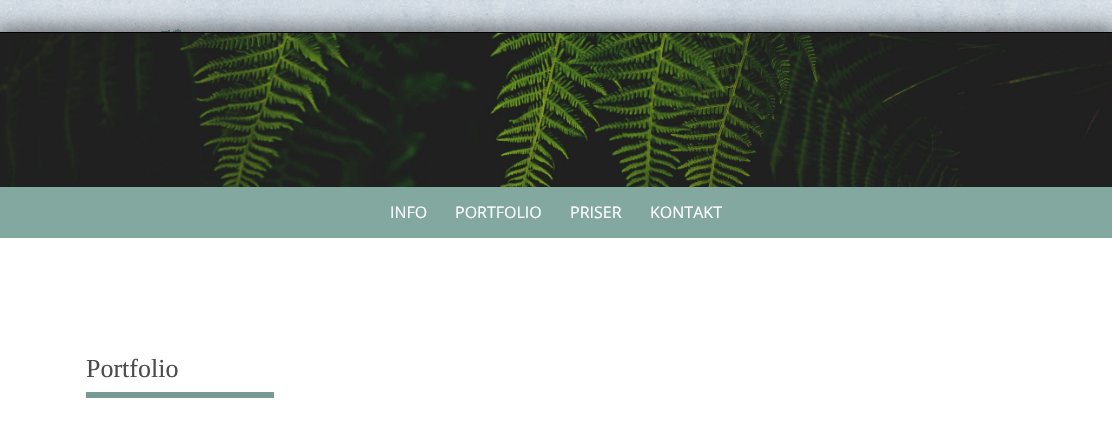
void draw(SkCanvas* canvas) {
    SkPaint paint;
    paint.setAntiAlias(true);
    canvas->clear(0xFFFFFFFF);
    canvas->drawImageRect(SkImages::DeferredFromEncodedData(SkData::MakeFromFileName("img1.png")), SkRect::MakeXYWH(0, 0, 1112, 32), SkSamplingOptions());
    paint.setColor(0x80000000);
    paint.setMaskFilter(SkMaskFilter::MakeBlur(kNormal_SkBlurStyle, 10));
    canvas->drawRect(SkRect::MakeXYWH(-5, 27, 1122, 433), paint);
    paint.setMaskFilter(nullptr);
    paint.setColor(0xFF000000);
    canvas->drawRect(SkRect::MakeXYWH(0, 32, 1112, 1), paint);
    canvas->drawImageRect(SkImages::DeferredFromEncodedData(SkData::MakeFromFileName("img2.png")), SkRect::MakeXYWH(0, 33, 1112, 154), SkSamplingOptions());
    paint.setColor(0xFF83A8A0);
    canvas->drawRect(SkRect::MakeXYWH(0, 187, 1112, 51), paint);
    SkFont font1(fontMgr->matchFamilyStyle("Open Sans", SkFontStyle::Normal()), 16);
    font1.setSubpixel(true);
    paint.setColor(0xFFFFFFFF);
    canvas->drawString("INFO", 390, 218, font1, paint);
    canvas->drawString("PORTFOLIO", 455, 218, font1, paint);
    canvas->drawString("PRISER", 570, 218, font1, paint);
    canvas->drawString("KONTAKT", 650, 218, font1, paint);
    canvas->drawRect(SkRect::MakeXYWH(0, 238, 1112, 192), paint);
    SkFont font2(fontMgr->matchFamilyStyle("Liberation Serif", SkFontStyle::Normal()), 26);
    font2.setSubpixel(true);
    paint.setColor(0xFF4C4C4C);
    canvas->drawString("Portfolio", 86, 377, font2, paint);
    paint.setColor(0xFF789993);
    canvas->drawRect(SkRect::MakeXYWH(86, 392, 188, 6), paint);
}
